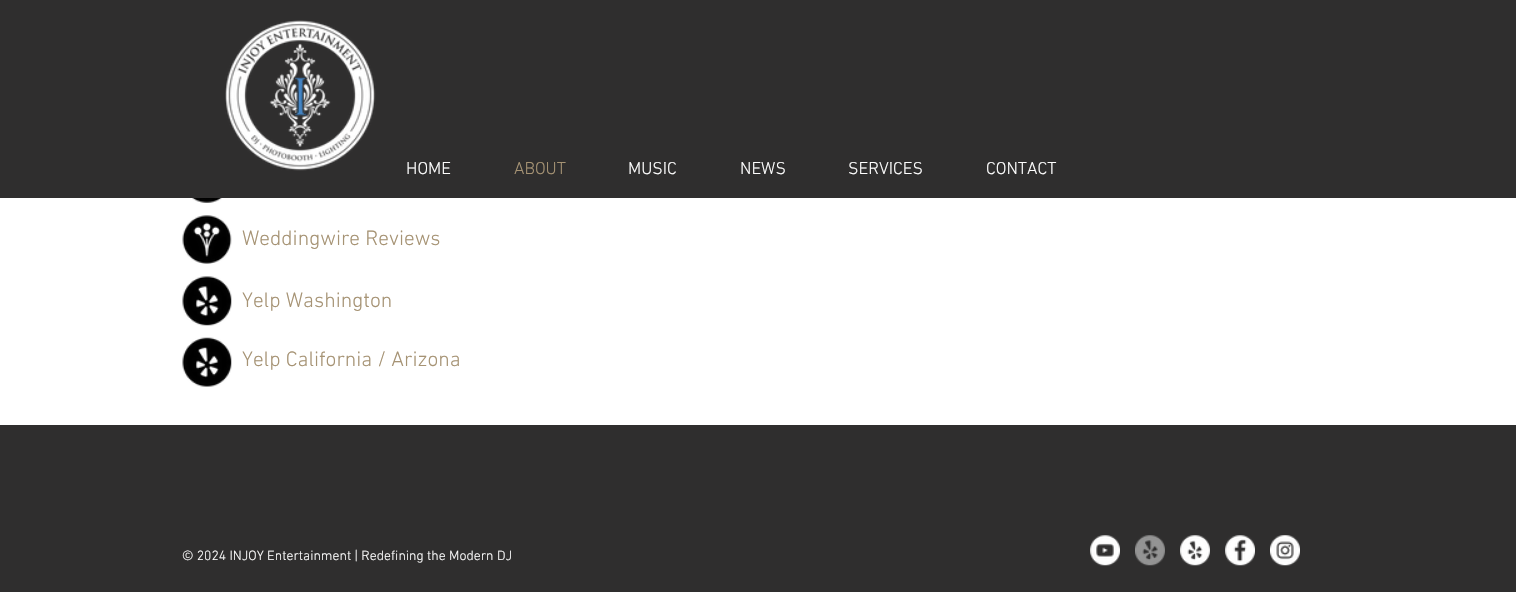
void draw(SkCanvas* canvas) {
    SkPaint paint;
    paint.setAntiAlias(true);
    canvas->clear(0xFFFFFFFF);
    paint.setColor(0xFF2F2E2E);
    canvas->drawRect(SkRect::MakeXYWH(0, 0, 1516, 198), paint);
    canvas->drawImageRect(SkImages::DeferredFromEncodedData(SkData::MakeFromFileName("img1.png")), SkRect::MakeXYWH(225, 20, 151, 151), SkSamplingOptions());
    SkFont font1(fontMgr->matchFamilyStyle("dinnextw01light", SkFontStyle(300, SkFontStyle::kNormal_Width, SkFontStyle::kUpright_Slant)), 17.5f);
    font1.setSubpixel(true);
    paint.setColor(0xFFFFFFFF);
    canvas->drawString("HOME", 406, 174, font1, paint);
    paint.setColor(0xFFA69374);
    canvas->drawString("ABOUT", 514, 174, font1, paint);
    paint.setColor(0xFFFFFFFF);
    canvas->drawString("MUSIC", 628, 174, font1, paint);
    canvas->drawString("NEWS", 740, 174, font1, paint);
    canvas->drawString("SERVICES", 848, 174, font1, paint);
    canvas->drawString("CONTACT", 986, 174, font1, paint);
    canvas->drawImageRect(SkImages::DeferredFromEncodedData(SkData::MakeFromFileName("img2.png")), SkRect::MakeXYWH(192, 198, 30, 5), SkSamplingOptions());
    canvas->drawImageRect(SkImages::DeferredFromEncodedData(SkData::MakeFromFileName("img3.png")), SkRect::MakeXYWH(182, 215, 50, 49), SkSamplingOptions());
    canvas->drawImageRect(SkImages::DeferredFromEncodedData(SkData::MakeFromFileName("img4.png")), SkRect::MakeXYWH(182, 276, 50, 50), SkSamplingOptions());
    canvas->drawImageRect(SkImages::DeferredFromEncodedData(SkData::MakeFromFileName("img5.png")), SkRect::MakeXYWH(182, 337, 50, 50), SkSamplingOptions());
    SkFont font2(fontMgr->matchFamilyStyle("dinnextw01light", SkFontStyle(300, SkFontStyle::kNormal_Width, SkFontStyle::kUpright_Slant)), 21.25f);
    font2.setSubpixel(true);
    paint.setColor(0xFFA69374);
    canvas->drawString("Weddingwire Reviews", 242, 245, font2, paint);
    canvas->drawString("Yelp Washington", 242, 307, font2, paint);
    canvas->drawString("Yelp California / Arizona", 242, 366, font2, paint);
    paint.setColor(0xFF2F2E2E);
    canvas->drawRect(SkRect::MakeXYWH(0, 425, 1516, 167), paint);
    SkFont font3(fontMgr->matchFamilyStyle("dinnextw01light", SkFontStyle(300, SkFontStyle::kNormal_Width, SkFontStyle::kUpright_Slant)), 13.75f);
    font3.setSubpixel(true);
    paint.setColor(0xFFFFFFFF);
    canvas->drawString("© 2024 INJOY Entertainment | Redefining the Modern DJ", 182, 560, font3, paint);
    canvas->drawImageRect(SkImages::DeferredFromEncodedData(SkData::MakeFromFileName("img6.png")), SkRect::MakeXYWH(1090, 535, 30, 31), SkSamplingOptions());
    canvas->drawImageRect(SkImages::DeferredFromEncodedData(SkData::MakeFromFileName("img7.png")), SkRect::MakeXYWH(1135, 535, 30, 31), SkSamplingOptions());
    canvas->drawImageRect(SkImages::DeferredFromEncodedData(SkData::MakeFromFileName("img8.png")), SkRect::MakeXYWH(1180, 535, 30, 31), SkSamplingOptions());
    canvas->drawImageRect(SkImages::DeferredFromEncodedData(SkData::MakeFromFileName("img9.png")), SkRect::MakeXYWH(1225, 535, 30, 31), SkSamplingOptions());
    canvas->drawImageRect(SkImages::DeferredFromEncodedData(SkData::MakeFromFileName("img10.png")), SkRect::MakeXYWH(1270, 535, 30, 31), SkSamplingOptions());
}
